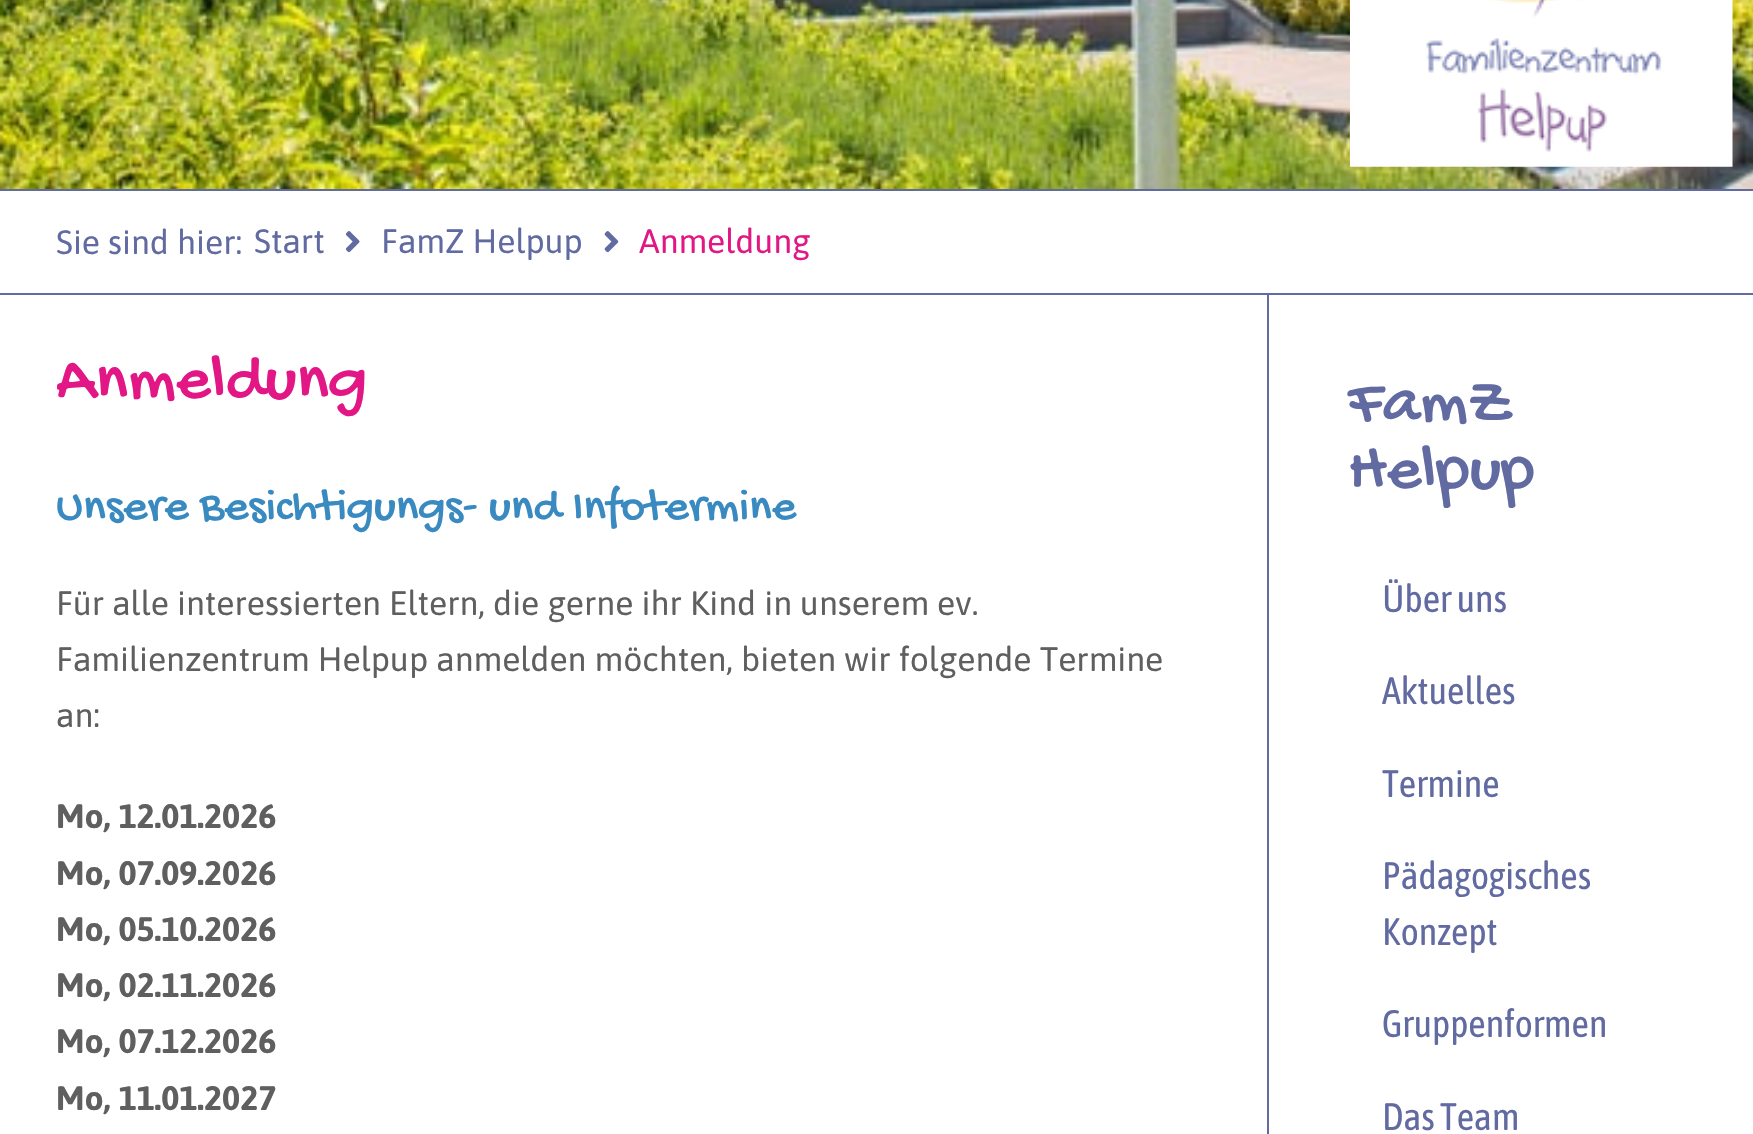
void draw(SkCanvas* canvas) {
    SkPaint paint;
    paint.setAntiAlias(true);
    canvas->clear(0xFFFFFFFF);
    canvas->drawImageRect(SkImages::DeferredFromEncodedData(SkData::MakeFromFileName("img1.png")), SkRect::MakeXYWH(0, 0, 1753, 189), SkSamplingOptions());
    canvas->drawImageRect(SkImages::DeferredFromEncodedData(SkData::MakeFromFileName("img2.png")), SkRect::MakeXYWH(1350, 0, 383, 167), SkSamplingOptions());
    paint.setColor(0xFF616AA1);
    canvas->drawRect(SkRect::MakeXYWH(0, 189, 1753, 2), paint);
    canvas->drawRect(SkRect::MakeXYWH(0, 293, 1753, 2), paint);
    SkFont font1(fontMgr->matchFamilyStyle("Asap", SkFontStyle::Normal()), 33.75f);
    font1.setSubpixel(true);
    canvas->drawString("Sie sind hier:", 56, 254, font1, paint);
    canvas->drawString("Start", 254, 253, font1, paint);
    canvas->drawImageRect(SkImages::DeferredFromEncodedData(SkData::MakeFromFileName("img3.png")), SkRect::MakeXYWH(345, 231, 15, 22), SkSamplingOptions());
    canvas->drawString("FamZ Helpup", 381, 253, font1, paint);
    canvas->drawImageRect(SkImages::DeferredFromEncodedData(SkData::MakeFromFileName("img4.png")), SkRect::MakeXYWH(604, 231, 15, 22), SkSamplingOptions());
    paint.setColor(0xFFE21684);
    canvas->drawString("Anmeldung", 639, 253, font1, paint);
    SkFont font2(fontMgr->matchFamilyStyle("Gochi Hand", SkFontStyle::Normal()), 67.5f);
    font2.setSubpixel(true);
    canvas->drawString("Anmeldung", 56, 396, font2, paint);
    SkFont font3(fontMgr->matchFamilyStyle("Gochi Hand", SkFontStyle::Normal()), 47.25f);
    font3.setSubpixel(true);
    paint.setColor(0xFF398AC0);
    canvas->drawString("Unsere Besichtigungs- und Infotermine", 56, 518, font3, paint);
    paint.setColor(0xFF5F5F5F);
    canvas->drawString("Für alle interessierten Eltern, die gerne ihr Kind in unserem ev.", 56, 615, font1, paint);
    canvas->drawString("Familienzentrum Helpup anmelden möchten, bieten wir folgende Termine", 56, 671, font1, paint);
    canvas->drawString("an:", 56, 727, font1, paint);
    SkFont font4(fontMgr->matchFamilyStyle("Asap", SkFontStyle::Bold()), 33.75f);
    font4.setSubpixel(true);
    canvas->drawString("Mo, 12.01.2026", 56, 828, font4, paint);
    canvas->drawString("Mo, 07.09.2026", 56, 885, font4, paint);
    canvas->drawString("Mo, 05.10.2026", 56, 941, font4, paint);
    canvas->drawString("Mo, 02.11.2026", 56, 997, font4, paint);
    canvas->drawString("Mo, 07.12.2026", 56, 1053, font4, paint);
    canvas->drawString("Mo, 11.01.2027", 56, 1110, font4, paint);
    paint.setColor(0xFF616AA1);
    canvas->drawRect(SkRect::MakeXYWH(1267, 295, 2, 839), paint);
    canvas->drawString("FamZ", 1348, 419, font2, paint);
    canvas->drawString("Helpup", 1348, 486, font2, paint);
    SkFont font5(fontMgr->matchFamilyStyle("Asap Condensed", SkFontStyle::Normal()), 38.25f);
    font5.setSubpixel(true);
    canvas->drawString("Über uns", 1382, 612, font5, paint);
    canvas->drawString("Aktuelles", 1382, 704, font5, paint);
    canvas->drawString("Termine", 1382, 797, font5, paint);
    canvas->drawString("Pädagogisches", 1382, 889, font5, paint);
    canvas->drawString("Konzept", 1382, 945, font5, paint);
    canvas->drawString("Gruppenformen", 1382, 1037, font5, paint);
    canvas->drawString("Das Team", 1382, 1130, font5, paint);
}
